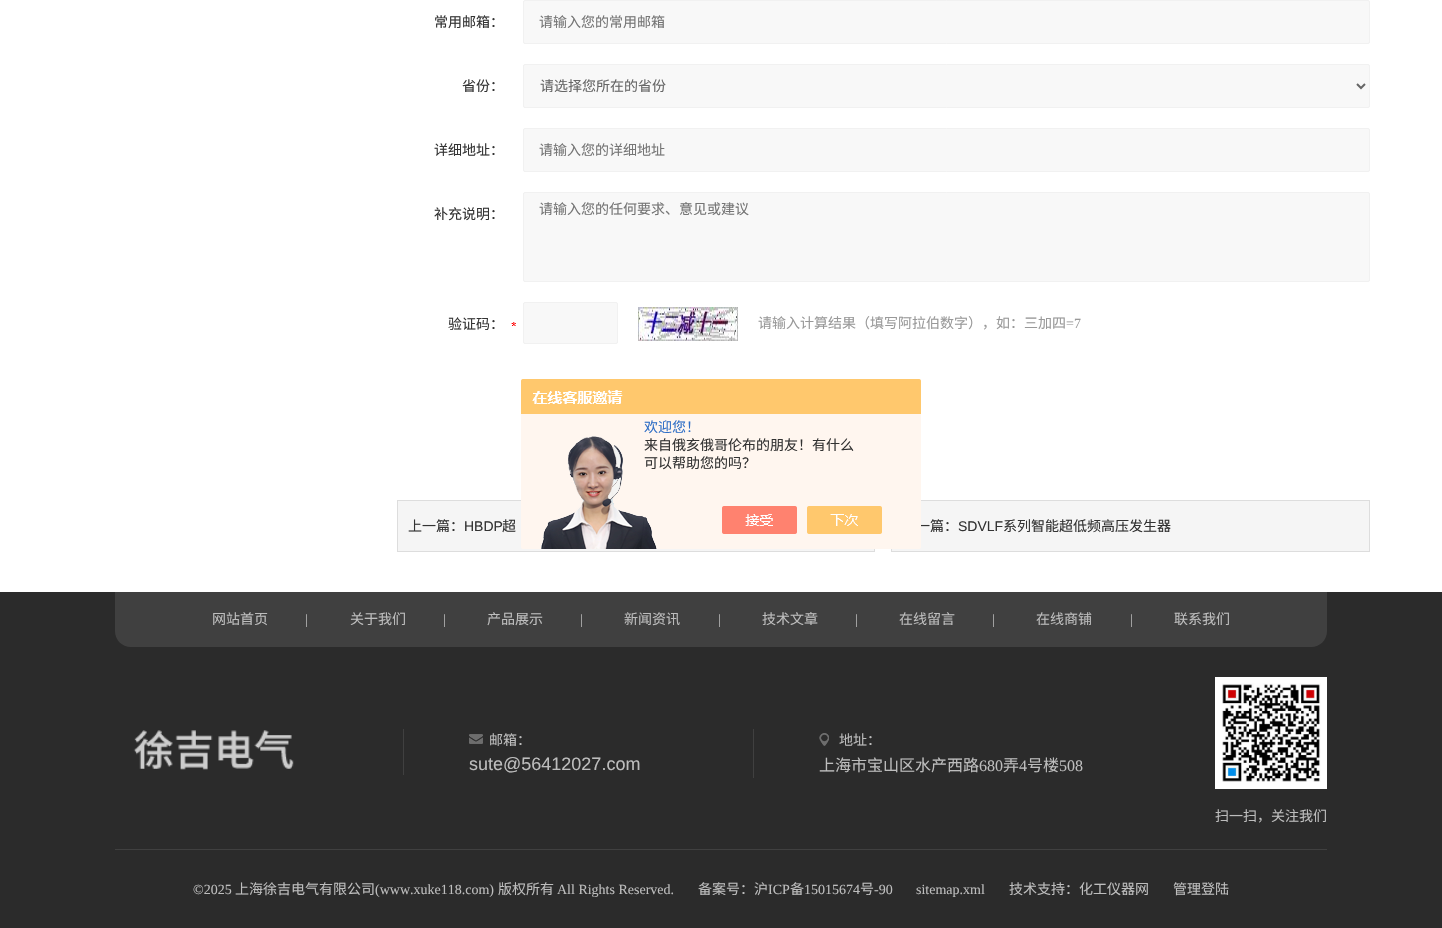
void draw(SkCanvas* canvas) {
    SkPaint paint;
    paint.setAntiAlias(true);
    canvas->clear(0xFFFFFFFF);
    SkFont font1(fontMgr->matchFamilyStyle("Noto Sans CJK SC", SkFontStyle::Normal()), 14);
    font1.setSubpixel(true);
    paint.setColor(0xFF333333);
    canvas->drawString("常用邮箱：", 434, 27, font1, paint);
    paint.setColor(0xFFF8F8F8);
    canvas->drawRoundRect(SkRect::MakeXYWH(523.5f, 0.5f, 846, 43), 1.5f, 1.5f, paint);
    paint.setStyle(SkPaint::kStroke_Style);
    paint.setStrokeWidth(1);
    paint.setColor(0xFFF1F1F1);
    canvas->drawRoundRect(SkRect::MakeXYWH(523.5f, 0.5f, 846, 43), 1.5f, 1.5f, paint);
    paint.setStyle(SkPaint::kFill_Style);
    paint.setColor(0xFF757575);
    canvas->drawString("请输入您的常用邮箱", 539, 27, font1, paint);
    paint.setColor(0xFF333333);
    canvas->drawString("省份：", 462, 91, font1, paint);
    paint.setColor(0xFFF8F8F8);
    canvas->drawRoundRect(SkRect::MakeXYWH(523.5f, 64.5f, 846, 43), 1.5f, 1.5f, paint);
    paint.setStyle(SkPaint::kStroke_Style);
    paint.setColor(0xFFF1F1F1);
    canvas->drawRoundRect(SkRect::MakeXYWH(523.5f, 64.5f, 846, 43), 1.5f, 1.5f, paint);
    paint.setStrokeWidth(2);
    paint.setColor(0xFF666666);
    canvas->drawPath(SkPathBuilder().moveTo(1357, 84).lineTo(1361, 88).lineTo(1365, 84).detach(), paint);
    paint.setStyle(SkPaint::kFill_Style);
    canvas->drawString("请选择您所在的省份", 540, 91, font1, paint);
    paint.setColor(0xFF333333);
    canvas->drawString("详细地址：", 434, 155, font1, paint);
    paint.setColor(0xFFF8F8F8);
    canvas->drawRoundRect(SkRect::MakeXYWH(523.5f, 128.5f, 846, 43), 1.5f, 1.5f, paint);
    paint.setStyle(SkPaint::kStroke_Style);
    paint.setStrokeWidth(1);
    paint.setColor(0xFFF1F1F1);
    canvas->drawRoundRect(SkRect::MakeXYWH(523.5f, 128.5f, 846, 43), 1.5f, 1.5f, paint);
    paint.setStyle(SkPaint::kFill_Style);
    paint.setColor(0xFF757575);
    canvas->drawString("请输入您的详细地址", 539, 155, font1, paint);
    paint.setColor(0xFF333333);
    canvas->drawString("补充说明：", 434, 219, font1, paint);
    paint.setColor(0xFFF8F8F8);
    canvas->drawRoundRect(SkRect::MakeXYWH(523.5f, 192.5f, 846, 89), 1.5f, 1.5f, paint);
    paint.setStyle(SkPaint::kStroke_Style);
    paint.setColor(0xFFF1F1F1);
    canvas->drawRoundRect(SkRect::MakeXYWH(523.5f, 192.5f, 846, 89), 1.5f, 1.5f, paint);
    paint.setStyle(SkPaint::kFill_Style);
    paint.setColor(0xFF757575);
    canvas->drawString("请输入您的任何要求、意见或建议", 539, 214, font1, paint);
    canvas->drawImageRect(SkImages::DeferredFromEncodedData(SkData::MakeFromFileName("img1.png")), SkRect::MakeXYWH(511, 322, 5, 4), SkSamplingOptions());
    paint.setColor(0xFF333333);
    canvas->drawString("验证码：", 448, 329, font1, paint);
    paint.setColor(0xFFF8F8F8);
    canvas->drawRoundRect(SkRect::MakeXYWH(523.5f, 302.5f, 94, 41), 1.5f, 1.5f, paint);
    paint.setStyle(SkPaint::kStroke_Style);
    paint.setColor(0xFFF1F1F1);
    canvas->drawRoundRect(SkRect::MakeXYWH(523.5f, 302.5f, 94, 41), 1.5f, 1.5f, paint);
    canvas->drawImageRect(SkImages::DeferredFromEncodedData(SkData::MakeFromFileName("img2.png")), SkRect::MakeXYWH(638, 307, 100, 34), SkSamplingOptions());
    paint.setStyle(SkPaint::kFill_Style);
    paint.setColor(0xFF999999);
    canvas->drawString("请输入计算结果（填写阿拉伯数字），如：三加四", 758, 328, font1, paint);
    SkFont font2(fontMgr->matchFamilyStyle("Liberation Serif", SkFontStyle::Normal()), 14);
    font2.setSubpixel(true);
    canvas->drawString("=7", 1066, 328, font2, paint);
    paint.setColor(0xFFF5F5F5);
    canvas->drawRect(SkRect::MakeXYWH(397.5f, 500.5f, 477, 51), paint);
    paint.setStyle(SkPaint::kStroke_Style);
    paint.setColor(0xFFDDDDDD);
    canvas->drawRect(SkRect::MakeXYWH(397.5f, 500.5f, 477, 51), paint);
    paint.setStyle(SkPaint::kFill_Style);
    paint.setColor(0xFF333333);
    canvas->drawString("上一篇：", 408, 531, font1, paint);
    SkFont font3(fontMgr->matchFamilyStyle("Liberation Sans", SkFontStyle::Normal()), 14);
    font3.setSubpixel(true);
    canvas->drawString("HBDP", 464, 531, font3, paint);
    canvas->drawString("超", 502, 531, font1, paint);
    paint.setColor(0xFFF5F5F5);
    canvas->drawRect(SkRect::MakeXYWH(891.5f, 500.5f, 478, 51), paint);
    paint.setStyle(SkPaint::kStroke_Style);
    paint.setColor(0xFFDDDDDD);
    canvas->drawRect(SkRect::MakeXYWH(891.5f, 500.5f, 478, 51), paint);
    paint.setStyle(SkPaint::kFill_Style);
    paint.setColor(0xFF333333);
    canvas->drawString("一篇：", 916, 531, font1, paint);
    canvas->drawString("SDVLF", 958, 531, font3, paint);
    canvas->drawString("系列智能超低频高压发生器", 1003, 531, font1, paint);
    canvas->drawImageRect(SkImages::DeferredFromEncodedData(SkData::MakeFromFileName("img3.png")), SkRect::MakeXYWH(521, 379, 400, 170), SkSamplingOptions());
    paint.setColor(0xFF2E6EC6);
    canvas->drawString("欢迎您！", 644, 432, font1, paint);
    paint.setColor(0xFF333333);
    canvas->drawString("来自俄亥俄哥伦布的朋友！有什么", 644, 450, font1, paint);
    canvas->drawString("可以帮助您的吗？", 644, 468, font1, paint);
    paint.setColor(0xFF2B2B2B);
    canvas->drawRect(SkRect::MakeXYWH(0, 592, 1442, 336), paint);
    paint.setColor(0xFF404040);
    canvas->drawPath(SkPathBuilder().moveTo(115, 592).lineTo(1327, 592).lineTo(1327, 631).cubicTo(1327, 640, 1320, 647, 1311, 647).lineTo(131, 647).cubicTo(122, 647, 115, 640, 115, 631).close().detach(), paint);
    paint.setColor(0xFFBDBDBD);
    canvas->drawString("网站首页", 212, 624, font1, paint);
    canvas->drawString("|", 305, 624, font2, paint);
    canvas->drawString("关于我们", 350, 624, font1, paint);
    canvas->drawString("|", 443, 624, font2, paint);
    canvas->drawString("产品展示", 487, 624, font1, paint);
    canvas->drawString("|", 580, 624, font2, paint);
    canvas->drawString("新闻资讯", 624, 624, font1, paint);
    canvas->drawString("|", 718, 624, font2, paint);
    canvas->drawString("技术文章", 762, 624, font1, paint);
    canvas->drawString("|", 855, 624, font2, paint);
    canvas->drawString("在线留言", 899, 624, font1, paint);
    canvas->drawString("|", 992, 624, font2, paint);
    canvas->drawString("在线商铺", 1036, 624, font1, paint);
    canvas->drawString("|", 1130, 624, font2, paint);
    canvas->drawString("联系我们", 1174, 624, font1, paint);
    canvas->drawImageRect(SkImages::DeferredFromEncodedData(SkData::MakeFromFileName("img4.png")), SkRect::MakeXYWH(133, 730, 161, 40), SkSamplingOptions());
    paint.setColor(0xFF404040);
    canvas->drawRect(SkRect::MakeXYWH(403, 729, 1, 46), paint);
    canvas->drawImageRect(SkImages::DeferredFromEncodedData(SkData::MakeFromFileName("img5.png")), SkRect::MakeXYWH(469, 734, 14, 10), SkSamplingOptions());
    paint.setColor(0xFFBDBDBD);
    canvas->drawString("邮箱：", 489, 745, font1, paint);
    SkFont font4(fontMgr->matchFamilyStyle("Liberation Sans", SkFontStyle::Normal()), 18);
    font4.setSubpixel(true);
    canvas->drawString("sute@56412027.com", 469, 770, font4, paint);
    paint.setColor(0xFF404040);
    canvas->drawRect(SkRect::MakeXYWH(753, 729, 1, 49), paint);
    canvas->drawImageRect(SkImages::DeferredFromEncodedData(SkData::MakeFromFileName("img6.png")), SkRect::MakeXYWH(819, 733, 10, 13), SkSamplingOptions());
    paint.setColor(0xFFBDBDBD);
    canvas->drawString("地址：", 839, 745, font1, paint);
    SkFont font5(fontMgr->matchFamilyStyle("Noto Sans CJK SC", SkFontStyle::Normal()), 16);
    font5.setSubpixel(true);
    canvas->drawString("上海市宝山区水产西路", 819, 771, font5, paint);
    SkFont font6(fontMgr->matchFamilyStyle("Liberation Serif", SkFontStyle::Normal()), 16);
    font6.setSubpixel(true);
    canvas->drawString("680", 979, 771, font6, paint);
    canvas->drawString("弄", 1003, 771, font5, paint);
    canvas->drawString("4", 1019, 771, font6, paint);
    canvas->drawString("号楼", 1027, 771, font5, paint);
    canvas->drawString("508", 1059, 771, font6, paint);
    paint.setColor(0xFFFFFFFF);
    canvas->drawRect(SkRect::MakeXYWH(1215, 677, 112, 112), paint);
    canvas->drawImageRect(SkImages::DeferredFromEncodedData(SkData::MakeFromFileName("img7.png")), SkRect::MakeXYWH(1222, 683, 99, 99), SkSamplingOptions());
    paint.setColor(0xFFBDBDBD);
    canvas->drawString("扫一扫，关注我们", 1215, 821, font1, paint);
    paint.setColor(0xFF404040);
    canvas->drawRect(SkRect::MakeXYWH(115, 849, 1212, 1), paint);
    paint.setColor(0xFFBDBDBD);
    canvas->drawString("©2025", 193, 894, font2, paint);
    canvas->drawString("上海徐吉电气有限公司", 235, 894, font1, paint);
    canvas->drawString("(www.xuke118.com)", 375, 894, font2, paint);
    canvas->drawString("版权所有", 498, 894, font1, paint);
    canvas->drawString("All Rights Reserved.", 557, 894, font2, paint);
    canvas->drawString("备案号：沪", 698, 894, font1, paint);
    canvas->drawString("ICP", 768, 894, font2, paint);
    canvas->drawString("备", 790, 894, font1, paint);
    canvas->drawString("15015674", 804, 894, font2, paint);
    canvas->drawString("号", 860, 894, font1, paint);
    canvas->drawString("-90", 874, 894, font2, paint);
    canvas->drawString("sitemap.xml", 916, 894, font2, paint);
    canvas->drawString("技术支持：化工仪器网", 1009, 894, font1, paint);
    canvas->drawString("管理登陆", 1173, 894, font1, paint);
}
